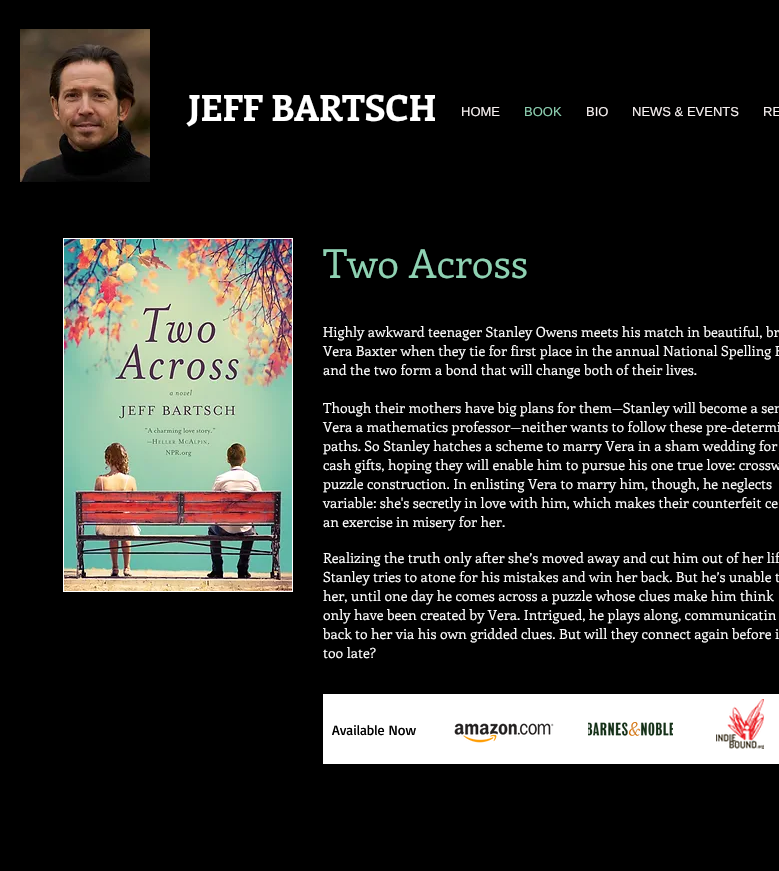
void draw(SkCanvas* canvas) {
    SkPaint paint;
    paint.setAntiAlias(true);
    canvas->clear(0xFF000000);
    canvas->drawImageRect(SkImages::DeferredFromEncodedData(SkData::MakeFromFileName("img1.png")), SkRect::MakeXYWH(20, 29, 130, 153), SkSamplingOptions());
    SkFont font1(fontMgr->matchFamilyStyle("Enriqueta", SkFontStyle::Bold()), 36);
    font1.setSubpixel(true);
    paint.setColor(0xFFFFFFFF);
    canvas->drawString("JEFF BARTSCH", 188, 121, font1, paint);
    SkFont font2(fontMgr->matchFamilyStyle("Liberation Sans", SkFontStyle::Normal()), 13);
    font2.setSubpixel(true);
    paint.setColor(0xFFF8F2F2);
    canvas->drawString("HOME", 461, 116, font2, paint);
    paint.setColor(0xFF8ED1B2);
    canvas->drawString("BOOK", 524, 116, font2, paint);
    paint.setColor(0xFFF8F2F2);
    canvas->drawString("BIO", 586, 116, font2, paint);
    canvas->drawString("NEWS & EVENTS", 632, 116, font2, paint);
    canvas->drawString("RE", 763, 116, font2, paint);
    paint.setColor(0xFFFFFFFF);
    canvas->drawRect(SkRect::MakeXYWH(63, 238, 230, 354), paint);
    canvas->drawImageRect(SkImages::DeferredFromEncodedData(SkData::MakeFromFileName("img2.png")), SkRect::MakeXYWH(64, 239, 228, 352), SkSamplingOptions());
    SkFont font3(fontMgr->matchFamilyStyle("Enriqueta", SkFontStyle::Normal()), 40);
    font3.setSubpixel(true);
    paint.setColor(0xFF8ED1B2);
    canvas->drawString("Two Across", 323, 278, font3, paint);
    SkFont font4(fontMgr->matchFamilyStyle("Enriqueta", SkFontStyle::Normal()), 14);
    font4.setSubpixel(true);
    paint.setColor(0xFFFFFFFF);
    canvas->drawString("Highly awkward teenager Stanley Owens meets his match in beautiful, br", 323, 337, font4, paint);
    canvas->drawString("Vera Baxter when they tie for first place in the annual National Spelling B", 323, 356, font4, paint);
    canvas->drawString("and the two form a bond that will change both of their lives.", 323, 375, font4, paint);
    canvas->drawString("Though their mothers have big plans for them—Stanley will become a sen", 323, 413, font4, paint);
    canvas->drawString("Vera a mathematics professor—neither wants to follow these pre-determi", 323, 432, font4, paint);
    canvas->drawString("paths. So Stanley hatches a scheme to marry Vera in a sham wedding for", 323, 451, font4, paint);
    canvas->drawString("cash gifts, hoping they will enable him to pursue his one true love: crossw", 323, 470, font4, paint);
    canvas->drawString("puzzle construction. In enlisting Vera to marry him, though, he neglects", 323, 489, font4, paint);
    canvas->drawString("variable: she's secretly in love with him, which makes their counterfeit ce", 323, 508, font4, paint);
    canvas->drawString("an exercise in misery for her.", 323, 527, font4, paint);
    canvas->drawString("Realizing the truth only after she’s moved away and cut him out of her lif", 323, 563, font4, paint);
    canvas->drawString("Stanley tries to atone for his mistakes and win her back. But he’s unable t", 323, 582, font4, paint);
    canvas->drawString("her, until one day he comes across a puzzle whose clues make him think", 323, 601, font4, paint);
    canvas->drawString("only have been created by Vera. Intrigued, he plays along, communicatin", 323, 620, font4, paint);
    canvas->drawString("back to her via his own gridded clues. But will they connect again before i", 323, 639, font4, paint);
    canvas->drawString("too late?", 323, 658, font4, paint);
    canvas->drawRect(SkRect::MakeXYWH(323, 694, 456, 70), paint);
    SkFont font5(fontMgr->matchFamilyStyle("Basic", SkFontStyle::Normal()), 14);
    font5.setSubpixel(true);
    paint.setColor(0xFF000000);
    canvas->drawString("Available Now", 332, 735, font5, paint);
    canvas->drawImageRect(SkImages::DeferredFromEncodedData(SkData::MakeFromFileName("img3.png")), SkRect::MakeXYWH(454, 723, 100, 20), SkSamplingOptions());
    canvas->drawImageRect(SkImages::DeferredFromEncodedData(SkData::MakeFromFileName("img4.png")), SkRect::MakeXYWH(588, 722, 85, 14), SkSamplingOptions());
    canvas->drawImageRect(SkImages::DeferredFromEncodedData(SkData::MakeFromFileName("img5.png")), SkRect::MakeXYWH(716, 699, 48, 50), SkSamplingOptions());
}
